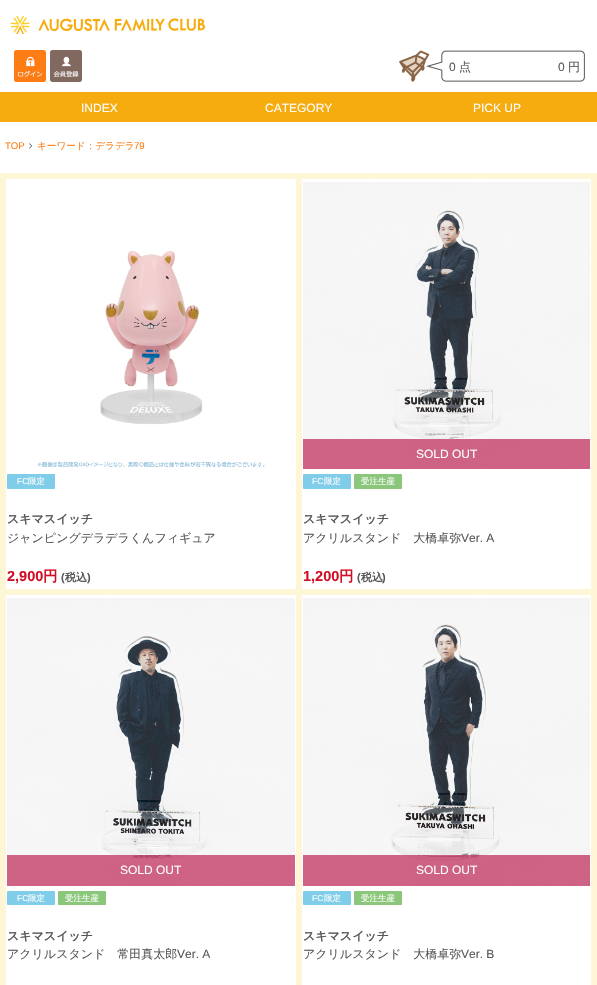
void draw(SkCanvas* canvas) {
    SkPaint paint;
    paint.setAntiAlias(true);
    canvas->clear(0xFFFFFFFF);
    canvas->drawImageRect(SkImages::DeferredFromEncodedData(SkData::MakeFromFileName("img1.png")), SkRect::MakeXYWH(10, 16, 195, 18), SkSamplingOptions());
    canvas->drawImageRect(SkImages::DeferredFromEncodedData(SkData::MakeFromFileName("img2.png")), SkRect::MakeXYWH(14, 50, 32, 32), SkSamplingOptions());
    canvas->drawImageRect(SkImages::DeferredFromEncodedData(SkData::MakeFromFileName("img3.png")), SkRect::MakeXYWH(50, 50, 32, 32), SkSamplingOptions());
    canvas->drawImageRect(SkImages::DeferredFromEncodedData(SkData::MakeFromFileName("img4.png")), SkRect::MakeXYWH(399, 50, 186, 32), SkSamplingOptions());
    SkFont font1(fontMgr->matchFamilyStyle("Liberation Sans", SkFontStyle::Normal()), 12);
    font1.setSubpixel(true);
    paint.setColor(0xFF595757);
    canvas->drawString("0", 449, 71, font1, paint);
    SkFont font2(fontMgr->matchFamilyStyle("WenQuanYi Zen Hei", SkFontStyle(500, SkFontStyle::kNormal_Width, SkFontStyle::kUpright_Slant)), 12);
    font2.setSubpixel(true);
    canvas->drawString("点", 459, 71, font2, paint);
    canvas->drawString("0", 558, 71, font1, paint);
    canvas->drawString("円", 568, 71, font2, paint);
    paint.setColor(0xFFF6AC0E);
    canvas->drawRect(SkRect::MakeXYWH(0, 92, 597, 30), paint);
    paint.setColor(0xFFFBFCFB);
    canvas->drawString("INDEX", 81, 112, font1, paint);
    canvas->drawString("CATEGORY", 265, 112, font1, paint);
    canvas->drawString("PICK UP", 473, 112, font1, paint);
    SkFont font3(fontMgr->matchFamilyStyle("Liberation Sans", SkFontStyle::Normal()), 9.6f);
    font3.setSubpixel(true);
    paint.setColor(0xFFFD7C13);
    canvas->drawString("TOP", 5, 149, font3, paint);
    canvas->drawImageRect(SkImages::DeferredFromEncodedData(SkData::MakeFromFileName("img5.png")), SkRect::MakeXYWH(29, 143, 4, 6), SkSamplingOptions());
    SkFont font4(fontMgr->matchFamilyStyle("WenQuanYi Zen Hei", SkFontStyle(500, SkFontStyle::kNormal_Width, SkFontStyle::kUpright_Slant)), 9.6f);
    font4.setSubpixel(true);
    canvas->drawString("キーワード：デラデラ", 37, 149, font4, paint);
    canvas->drawString("79", 134, 149, font3, paint);
    paint.setColor(0xFFFFF5D7);
    canvas->drawRect(SkRect::MakeXYWH(0, 173, 597, 812), paint);
    paint.setColor(0xFFFFFFFF);
    canvas->drawRect(SkRect::MakeXYWH(6, 179, 290, 410), paint);
    canvas->drawImageRect(SkImages::DeferredFromEncodedData(SkData::MakeFromFileName("img6.png")), SkRect::MakeXYWH(37, 251, 228, 216), SkSamplingOptions());
    paint.setColor(0xFF80CDEA);
    canvas->drawRoundRect(SkRect::MakeXYWH(7, 474, 48, 15), 1, 1, paint);
    SkFont font5(fontMgr->matchFamilyStyle("Liberation Sans", SkFontStyle::Normal()), 8.5f);
    font5.setSubpixel(true);
    paint.setColor(0xFFFBFCFB);
    canvas->drawString("FC", 17, 484, font5, paint);
    SkFont font6(fontMgr->matchFamilyStyle("WenQuanYi Zen Hei", SkFontStyle(500, SkFontStyle::kNormal_Width, SkFontStyle::kUpright_Slant)), 8.5f);
    font6.setSubpixel(true);
    canvas->drawString("限定", 28, 484, font6, paint);
    SkFont font7(fontMgr->matchFamilyStyle("WenQuanYi Zen Hei", SkFontStyle::Bold()), 12);
    font7.setSubpixel(true);
    paint.setColor(0xFF595757);
    canvas->drawString("スキマスイッチ", 7, 523, font7, paint);
    canvas->drawString("ジャンピングデラデラくんフィギュア", 7, 542, font2, paint);
    SkFont font8(fontMgr->matchFamilyStyle("Liberation Sans", SkFontStyle::Bold()), 14.5f);
    font8.setSubpixel(true);
    paint.setColor(0xFFD10E25);
    canvas->drawString("2,900", 7, 581, font8, paint);
    SkFont font9(fontMgr->matchFamilyStyle("WenQuanYi Zen Hei", SkFontStyle::Bold()), 14.5f);
    font9.setSubpixel(true);
    canvas->drawString("円", 43, 581, font9, paint);
    SkFont font10(fontMgr->matchFamilyStyle("Liberation Sans", SkFontStyle::Bold()), 11);
    font10.setSubpixel(true);
    paint.setColor(0xFF595757);
    canvas->drawString("(", 61, 581, font10, paint);
    SkFont font11(fontMgr->matchFamilyStyle("WenQuanYi Zen Hei", SkFontStyle::Bold()), 11);
    font11.setSubpixel(true);
    canvas->drawString("税込", 65, 581, font11, paint);
    canvas->drawString(")", 87, 581, font10, paint);
    paint.setColor(0xFFFFFFFF);
    canvas->drawRect(SkRect::MakeXYWH(302, 179, 289, 410), paint);
    canvas->drawImageRect(SkImages::DeferredFromEncodedData(SkData::MakeFromFileName("img7.png")), SkRect::MakeXYWH(303, 182, 287, 287), SkSamplingOptions());
    paint.setColor(0x99B3003B);
    canvas->drawRect(SkRect::MakeXYWH(303, 439, 287, 30), paint);
    paint.setColor(0xFFFBFCFB);
    canvas->drawString("SOLD OUT", 416, 458, font1, paint);
    paint.setColor(0xFF80CDEA);
    canvas->drawRoundRect(SkRect::MakeXYWH(303, 474, 48, 15), 1, 1, paint);
    paint.setColor(0xFFFBFCFB);
    canvas->drawString("FC", 312, 484, font5, paint);
    canvas->drawString("限定", 324, 484, font6, paint);
    paint.setColor(0xFF8BC77A);
    canvas->drawRoundRect(SkRect::MakeXYWH(354, 474, 48, 15), 1, 1, paint);
    paint.setColor(0xFFFBFCFB);
    canvas->drawString("受注生産", 361, 484, font6, paint);
    paint.setColor(0xFF595757);
    canvas->drawString("スキマスイッチ", 303, 523, font7, paint);
    canvas->drawString("アクリルスタンド　大橋卓弥", 303, 542, font2, paint);
    canvas->drawString("Ver. A", 461, 542, font1, paint);
    paint.setColor(0xFFD10E25);
    canvas->drawString("1,200", 303, 581, font8, paint);
    canvas->drawString("円", 339, 581, font9, paint);
    paint.setColor(0xFF595757);
    canvas->drawString("(", 357, 581, font10, paint);
    canvas->drawString("税込", 361, 581, font11, paint);
    canvas->drawString(")", 382, 581, font10, paint);
    paint.setColor(0xFFFFFFFF);
    canvas->drawRect(SkRect::MakeXYWH(6, 595, 290, 390), paint);
    canvas->drawImageRect(SkImages::DeferredFromEncodedData(SkData::MakeFromFileName("img8.png")), SkRect::MakeXYWH(7, 598, 288, 288), SkSamplingOptions());
    paint.setColor(0x99B3003B);
    canvas->drawRect(SkRect::MakeXYWH(7, 855, 288, 31), paint);
    paint.setColor(0xFFFBFCFB);
    canvas->drawString("SOLD OUT", 120, 874, font1, paint);
    paint.setColor(0xFF80CDEA);
    canvas->drawRoundRect(SkRect::MakeXYWH(7, 891, 48, 14), 1, 1, paint);
    paint.setColor(0xFFFBFCFB);
    canvas->drawString("FC", 17, 901, font5, paint);
    canvas->drawString("限定", 28, 901, font6, paint);
    paint.setColor(0xFF8BC77A);
    canvas->drawRoundRect(SkRect::MakeXYWH(58, 891, 48, 14), 1, 1, paint);
    paint.setColor(0xFFFBFCFB);
    canvas->drawString("受注生産", 65, 901, font6, paint);
    paint.setColor(0xFF595757);
    canvas->drawString("スキマスイッチ", 7, 940, font7, paint);
    canvas->drawString("アクリルスタンド　常田真太郎", 7, 958, font2, paint);
    canvas->drawString("Ver. A", 177, 958, font1, paint);
    paint.setColor(0xFFFFFFFF);
    canvas->drawRect(SkRect::MakeXYWH(302, 595, 289, 390), paint);
    canvas->drawImageRect(SkImages::DeferredFromEncodedData(SkData::MakeFromFileName("img9.png")), SkRect::MakeXYWH(303, 598, 287, 288), SkSamplingOptions());
    paint.setColor(0x99B3003B);
    canvas->drawRect(SkRect::MakeXYWH(303, 855, 287, 31), paint);
    paint.setColor(0xFFFBFCFB);
    canvas->drawString("SOLD OUT", 416, 874, font1, paint);
    paint.setColor(0xFF80CDEA);
    canvas->drawRoundRect(SkRect::MakeXYWH(303, 891, 48, 14), 1, 1, paint);
    paint.setColor(0xFFFBFCFB);
    canvas->drawString("FC", 312, 901, font5, paint);
    canvas->drawString("限定", 324, 901, font6, paint);
    paint.setColor(0xFF8BC77A);
    canvas->drawRoundRect(SkRect::MakeXYWH(354, 891, 48, 14), 1, 1, paint);
    paint.setColor(0xFFFBFCFB);
    canvas->drawString("受注生産", 361, 901, font6, paint);
    paint.setColor(0xFF595757);
    canvas->drawString("スキマスイッチ", 303, 940, font7, paint);
    canvas->drawString("アクリルスタンド　大橋卓弥", 303, 958, font2, paint);
    canvas->drawString("Ver. B", 461, 958, font1, paint);
}
